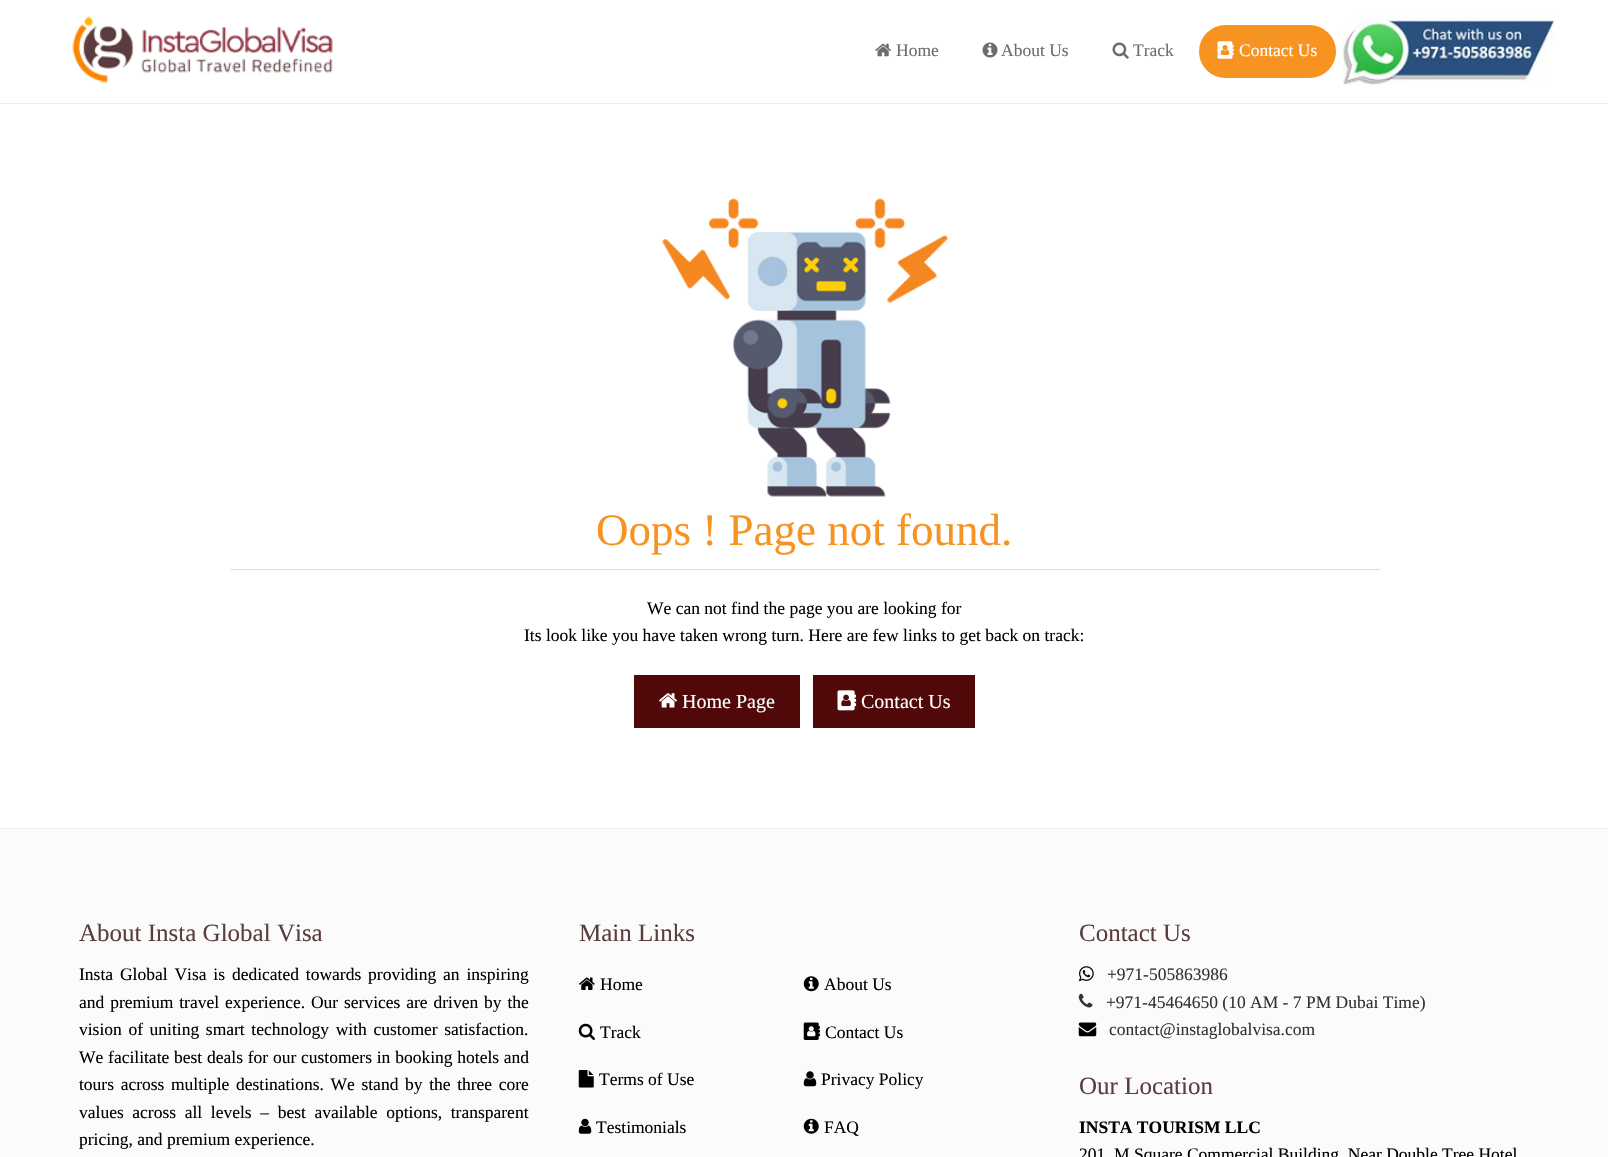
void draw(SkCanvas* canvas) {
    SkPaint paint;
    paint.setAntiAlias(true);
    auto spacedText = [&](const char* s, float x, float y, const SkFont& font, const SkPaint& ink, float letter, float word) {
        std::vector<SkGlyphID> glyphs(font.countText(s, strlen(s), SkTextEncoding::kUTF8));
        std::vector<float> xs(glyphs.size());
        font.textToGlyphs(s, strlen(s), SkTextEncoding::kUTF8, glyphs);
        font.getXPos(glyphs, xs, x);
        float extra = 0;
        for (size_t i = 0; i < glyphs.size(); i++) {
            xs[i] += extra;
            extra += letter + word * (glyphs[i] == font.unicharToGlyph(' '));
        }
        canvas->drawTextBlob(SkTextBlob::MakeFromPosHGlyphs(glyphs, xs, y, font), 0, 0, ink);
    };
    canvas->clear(0xFFFFFFFF);
    paint.setColor(0xFFEEEEEE);
    canvas->drawRect(SkRect::MakeXYWH(0, 103, 1608, 1), paint);
    canvas->drawImageRect(SkImages::DeferredFromEncodedData(SkData::MakeFromFileName("img1.png")), SkRect::MakeXYWH(72, 16, 261, 67), SkSamplingOptions());
    canvas->drawImageRect(SkImages::DeferredFromEncodedData(SkData::MakeFromFileName("img2.png")), SkRect::MakeXYWH(875, 43, 16, 14), SkSamplingOptions());
    SkFont font1(fontMgr->matchFamilyStyle("Liberation Serif", SkFontStyle::Normal()), 17.5f);
    font1.setSubpixel(true);
    paint.setColor(0xFF6C6C6C);
    canvas->drawString("Home", 896, 56, font1, paint);
    canvas->drawImageRect(SkImages::DeferredFromEncodedData(SkData::MakeFromFileName("img3.png")), SkRect::MakeXYWH(982, 42, 16, 16), SkSamplingOptions());
    canvas->drawString("About Us", 1001, 56, font1, paint);
    canvas->drawImageRect(SkImages::DeferredFromEncodedData(SkData::MakeFromFileName("img4.png")), SkRect::MakeXYWH(1112, 42, 17, 17), SkSamplingOptions());
    canvas->drawString("Track", 1133, 56, font1, paint);
    paint.setColor(0xFFF69321);
    canvas->drawRoundRect(SkRect::MakeXYWH(1199, 25, 137, 53), 26.5f, 26.5f, paint);
    canvas->drawImageRect(SkImages::DeferredFromEncodedData(SkData::MakeFromFileName("img5.png")), SkRect::MakeXYWH(1217, 41, 17, 18), SkSamplingOptions());
    paint.setColor(0xFFFFFFFF);
    canvas->drawString("Contact Us", 1239, 56, font1, paint);
    canvas->drawImageRect(SkImages::DeferredFromEncodedData(SkData::MakeFromFileName("img6.png")), SkRect::MakeXYWH(1342, 12, 213, 73), SkSamplingOptions());
    canvas->drawImageRect(SkImages::DeferredFromEncodedData(SkData::MakeFromFileName("img7.png")), SkRect::MakeXYWH(662, 198, 286, 299), SkSamplingOptions());
    paint.setColor(0xFFDDDDDD);
    canvas->drawRect(SkRect::MakeXYWH(230, 569, 1150, 1), paint);
    SkFont font2(fontMgr->matchFamilyStyle("Liberation Serif", SkFontStyle::Normal()), 45);
    font2.setSubpixel(true);
    paint.setColor(0xFFF69321);
    canvas->drawString("Oops ! Page not found.", 596, 545, font2, paint);
    paint.setColor(0xFF000000);
    canvas->drawString("We can not find the page you are looking for", 647, 614, font1, paint);
    canvas->drawString("Its look like you have taken wrong turn. Here are few links to get back on track:", 524, 641, font1, paint);
    paint.setColor(0xFF510808);
    canvas->drawRect(SkRect::MakeXYWH(634, 675, 166, 53), paint);
    canvas->drawImageRect(SkImages::DeferredFromEncodedData(SkData::MakeFromFileName("img8.png")), SkRect::MakeXYWH(659, 693, 18, 15), SkSamplingOptions());
    SkFont font3(fontMgr->matchFamilyStyle("Liberation Serif", SkFontStyle::Normal()), 20);
    font3.setSubpixel(true);
    paint.setColor(0xFFFFFFFF);
    canvas->drawString("Home Page", 682, 708, font3, paint);
    paint.setColor(0xFF510808);
    canvas->drawRect(SkRect::MakeXYWH(813, 675, 162, 53), paint);
    canvas->drawImageRect(SkImages::DeferredFromEncodedData(SkData::MakeFromFileName("img9.png")), SkRect::MakeXYWH(837, 690, 20, 21), SkSamplingOptions());
    paint.setColor(0xFFFFFFFF);
    canvas->drawString("Contact Us", 861, 708, font3, paint);
    paint.setColor(0xFFFBFBFB);
    canvas->drawRect(SkRect::MakeXYWH(0, 829, 1608, 328), paint);
    paint.setColor(0xFFEEEEEE);
    canvas->drawRect(SkRect::MakeXYWH(0, 828, 1608, 1), paint);
    SkFont font4(fontMgr->matchFamilyStyle("Liberation Serif", SkFontStyle::Normal()), 25);
    font4.setSubpixel(true);
    paint.setColor(0xFF5C3D3D);
    canvas->drawString("About Insta Global Visa", 79, 941, font4, paint);
    paint.setColor(0xFF000000);
    spacedText("Insta Global Visa is dedicated towards providing an inspiring", 79, 980, font1, paint, 0, 2.5f);
    spacedText("and premium travel experience. Our services are driven by the", 79, 1008, font1, paint, 0, 1.5f);
    spacedText("vision of uniting smart technology with customer satisfaction.", 79, 1035, font1, paint, 0, 2.25f);
    spacedText("We facilitate best deals for our customers in booking hotels and", 79, 1063, font1, paint, 0, 0.4f);
    spacedText("tours across multiple destinations. We stand by the three core", 79, 1090, font1, paint, 0, 2.25f);
    spacedText("values across all levels – best available options, transparent", 79, 1118, font1, paint, 0, 4.25f);
    canvas->drawString("pricing, and premium experience.", 79, 1145, font1, paint);
    paint.setColor(0xFF5C3D3D);
    canvas->drawString("Main Links", 579, 941, font4, paint);
    canvas->drawImageRect(SkImages::DeferredFromEncodedData(SkData::MakeFromFileName("img10.png")), SkRect::MakeXYWH(579, 977, 16, 13), SkSamplingOptions());
    paint.setColor(0xFF000000);
    canvas->drawString("Home", 600, 990, font1, paint);
    canvas->drawImageRect(SkImages::DeferredFromEncodedData(SkData::MakeFromFileName("img11.png")), SkRect::MakeXYWH(803, 976, 16, 16), SkSamplingOptions());
    canvas->drawString("About Us", 824, 990, font1, paint);
    canvas->drawImageRect(SkImages::DeferredFromEncodedData(SkData::MakeFromFileName("img12.png")), SkRect::MakeXYWH(578, 1023, 17, 17), SkSamplingOptions());
    canvas->drawString("Track", 600, 1038, font1, paint);
    canvas->drawImageRect(SkImages::DeferredFromEncodedData(SkData::MakeFromFileName("img13.png")), SkRect::MakeXYWH(803, 1022, 17, 18), SkSamplingOptions());
    canvas->drawString("Contact Us", 825, 1038, font1, paint);
    canvas->drawImageRect(SkImages::DeferredFromEncodedData(SkData::MakeFromFileName("img14.png")), SkRect::MakeXYWH(578, 1070, 16, 18), SkSamplingOptions());
    canvas->drawString("Terms of Use", 599, 1085, font1, paint);
    canvas->drawImageRect(SkImages::DeferredFromEncodedData(SkData::MakeFromFileName("img15.png")), SkRect::MakeXYWH(803, 1071, 14, 16), SkSamplingOptions());
    canvas->drawString("Privacy Policy", 821, 1085, font1, paint);
    canvas->drawImageRect(SkImages::DeferredFromEncodedData(SkData::MakeFromFileName("img16.png")), SkRect::MakeXYWH(578, 1118, 14, 16), SkSamplingOptions());
    canvas->drawString("Testimonials", 596, 1133, font1, paint);
    canvas->drawImageRect(SkImages::DeferredFromEncodedData(SkData::MakeFromFileName("img17.png")), SkRect::MakeXYWH(803, 1118, 16, 16), SkSamplingOptions());
    canvas->drawString("FAQ", 824, 1133, font1, paint);
    paint.setColor(0xFF5C3D3D);
    canvas->drawString("Contact Us", 1079, 941, font4, paint);
    canvas->drawImageRect(SkImages::DeferredFromEncodedData(SkData::MakeFromFileName("img18.png")), SkRect::MakeXYWH(1078, 966, 16, 16), SkSamplingOptions());
    paint.setColor(0xFF333333);
    canvas->drawString("+971-505863986", 1107, 980, font1, paint);
    canvas->drawImageRect(SkImages::DeferredFromEncodedData(SkData::MakeFromFileName("img19.png")), SkRect::MakeXYWH(1078, 993, 15, 15), SkSamplingOptions());
    canvas->drawString("+971-45464650 (10 AM - 7 PM Dubai Time)", 1106, 1008, font1, paint);
    canvas->drawImageRect(SkImages::DeferredFromEncodedData(SkData::MakeFromFileName("img20.png")), SkRect::MakeXYWH(1078, 1022, 19, 15), SkSamplingOptions());
    canvas->drawString("contact@instaglobalvisa.com", 1109, 1035, font1, paint);
    paint.setColor(0xFF5C3D3D);
    canvas->drawString("Our Location", 1079, 1094, font4, paint);
    SkFont font5(fontMgr->matchFamilyStyle("Liberation Serif", SkFontStyle::Bold()), 17.5f);
    font5.setSubpixel(true);
    paint.setColor(0xFF000000);
    canvas->drawString("INSTA TOURISM LLC", 1079, 1133, font5, paint);
    canvas->drawString("201, M Square Commercial Building, Near Double Tree Hotel", 1079, 1160, font1, paint);
}
